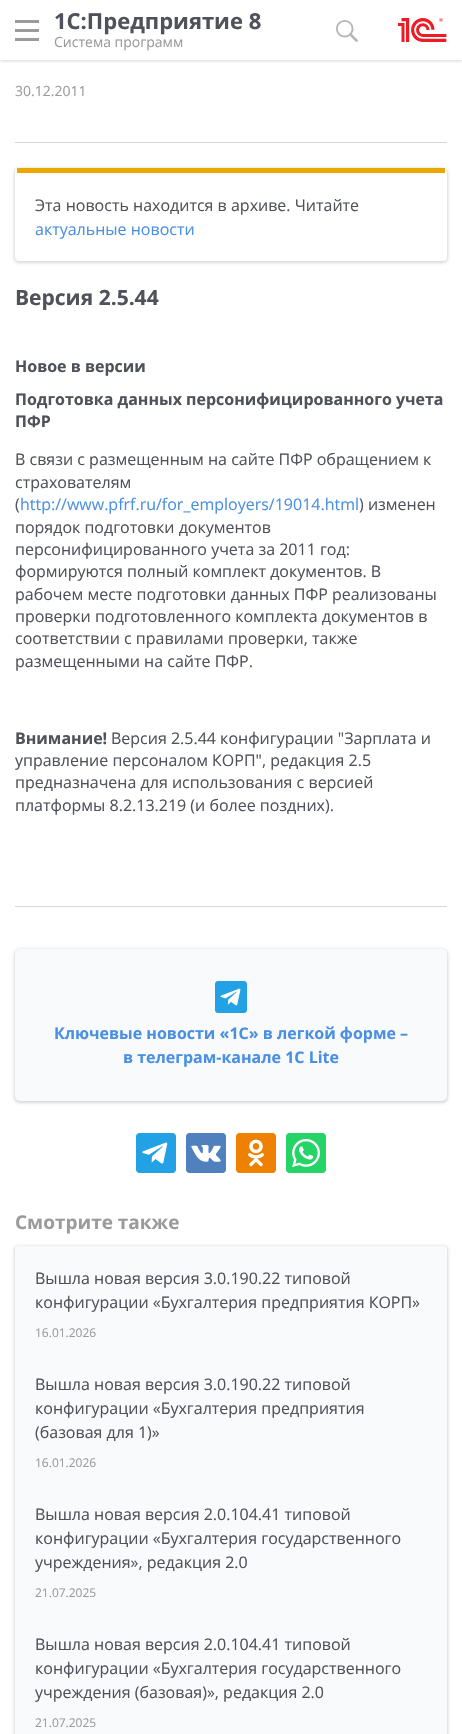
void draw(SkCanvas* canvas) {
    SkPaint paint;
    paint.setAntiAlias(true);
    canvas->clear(0xFFFFFFFF);
    canvas->save();
    canvas->clipRect(SkRect::MakeXYWH(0, 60, 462, 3));
    paint.setColor(0x40000000);
    paint.setMaskFilter(SkMaskFilter::MakeBlur(kNormal_SkBlurStyle, 2));
    canvas->drawRect(SkRect::MakeXYWH(0, 0, 462, 60), paint);
    paint.setMaskFilter(nullptr);
    canvas->restore();
    canvas->drawImageRect(SkImages::DeferredFromEncodedData(SkData::MakeFromFileName("img1.png")), SkRect::MakeXYWH(15, 20, 24, 21), SkSamplingOptions());
    SkFont font1(fontMgr->matchFamilyStyle("Open Sans", SkFontStyle::Bold()), 22);
    font1.setSubpixel(true);
    paint.setColor(0xFF50525B);
    canvas->drawString("1С:Предприятие 8", 54, 29, font1, paint);
    SkFont font2(fontMgr->matchFamilyStyle("Open Sans", SkFontStyle::Normal()), 14);
    font2.setSubpixel(true);
    paint.setColor(0xFF9B9B9B);
    canvas->drawString("Система программ", 54, 47, font2, paint);
    canvas->drawImageRect(SkImages::DeferredFromEncodedData(SkData::MakeFromFileName("img2.png")), SkRect::MakeXYWH(336, 20, 22, 22), SkSamplingOptions());
    canvas->drawImageRect(SkImages::DeferredFromEncodedData(SkData::MakeFromFileName("img3.png")), SkRect::MakeXYWH(398, 18, 49, 24), SkSamplingOptions());
    paint.setColor(0xFFD8D8D8);
    canvas->drawRect(SkRect::MakeXYWH(15, 142, 432, 1), paint);
    paint.setColor(0xFF9B9B9B);
    canvas->drawString("30.12.2011", 15, 96, font2, paint);
    paint.setColor(0x26000000);
    paint.setMaskFilter(SkMaskFilter::MakeBlur(kNormal_SkBlurStyle, 1.5f));
    canvas->drawRoundRect(SkRect::MakeXYWH(14, 168, 434, 95), 5, 5, paint);
    paint.setMaskFilter(nullptr);
    paint.setColor(0xFFFFFFFF);
    canvas->drawRoundRect(SkRect::MakeXYWH(15, 168, 432, 93), 4, 4, paint);
    paint.setColor(0xFFEAA800);
    canvas->drawRect(SkRect::MakeXYWH(17, 168, 428, 5), paint);
    SkFont font3(fontMgr->matchFamilyStyle("Open Sans", SkFontStyle::Normal()), 16);
    font3.setSubpixel(true);
    paint.setColor(0xFF50525B);
    canvas->drawString("Эта новость находится в архиве. Читайте", 35, 211, font3, paint);
    paint.setColor(0xFF4A90E2);
    canvas->drawString("актуальные новости", 35, 235, font3, paint);
    SkFont font4(fontMgr->matchFamilyStyle("Open Sans", SkFontStyle::Bold()), 21);
    font4.setSubpixel(true);
    paint.setColor(0xFF50525B);
    canvas->drawString("Версия 2.5.44", 15, 305, font4, paint);
    SkFont font5(fontMgr->matchFamilyStyle("Open Sans", SkFontStyle::Bold()), 16);
    font5.setSubpixel(true);
    canvas->drawString("Новое в версии", 15, 372, font5, paint);
    canvas->drawString("Подготовка данных персонифицированного учета", 15, 405, font5, paint);
    canvas->drawString("ПФР", 15, 427, font5, paint);
    canvas->drawString("В связи с размещенным на сайте ПФР обращением к", 15, 465, font3, paint);
    canvas->drawString("страхователям", 15, 488, font3, paint);
    canvas->drawString("(", 15, 510, font3, paint);
    paint.setColor(0xFF4A90E2);
    canvas->drawString("http://www.pfrf.ru/for_employers/19014.html", 20, 510, font3, paint);
    paint.setColor(0xFF50525B);
    canvas->drawString(") изменен", 359, 510, font3, paint);
    canvas->drawString("порядок подготовки документов", 15, 533, font3, paint);
    canvas->drawString("персонифицированного учета за 2011 год:", 15, 555, font3, paint);
    canvas->drawString("формируются полный комплект документов. В", 15, 577, font3, paint);
    canvas->drawString("рабочем месте подготовки данных ПФР реализованы", 15, 600, font3, paint);
    canvas->drawString("проверки подготовленного комплекта документов в", 15, 622, font3, paint);
    canvas->drawString("соответствии с правилами проверки, также", 15, 644, font3, paint);
    canvas->drawString("размещенными на сайте ПФР.", 15, 667, font3, paint);
    canvas->drawString("Внимание!", 15, 744, font5, paint);
    canvas->drawString("Версия 2.5.44 конфигурации \"Зарплата и", 111, 744, font3, paint);
    canvas->drawString("управление персоналом КОРП\", редакция 2.5", 15, 766, font3, paint);
    canvas->drawString("предназначена для использования с версией", 15, 788, font3, paint);
    canvas->drawString("платформы 8.2.13.219 (и более поздних).", 15, 811, font3, paint);
    paint.setColor(0xFFD8D8D8);
    canvas->drawRect(SkRect::MakeXYWH(15, 906, 432, 1), paint);
    paint.setColor(0x26000000);
    paint.setMaskFilter(SkMaskFilter::MakeBlur(kNormal_SkBlurStyle, 1.5f));
    canvas->drawRoundRect(SkRect::MakeXYWH(14, 949, 434, 154), 6, 6, paint);
    paint.setMaskFilter(nullptr);
    paint.setColor(0xFFF9FAFC);
    canvas->drawRoundRect(SkRect::MakeXYWH(15, 949, 432, 152), 5, 5, paint);
    canvas->drawImageRect(SkImages::DeferredFromEncodedData(SkData::MakeFromFileName("img4.png")), SkRect::MakeXYWH(215, 981, 32, 32), SkSamplingOptions());
    paint.setColor(0xFF4A90E2);
    canvas->drawString("Ключевые новости «1С» в легкой форме –", 54, 1039, font5, paint);
    canvas->drawString("в телеграм-канале 1С Lite", 123, 1063, font5, paint);
    canvas->drawImageRect(SkImages::DeferredFromEncodedData(SkData::MakeFromFileName("img5.png")), SkRect::MakeXYWH(136, 1133, 40, 40), SkSamplingOptions());
    canvas->drawImageRect(SkImages::DeferredFromEncodedData(SkData::MakeFromFileName("img6.png")), SkRect::MakeXYWH(186, 1133, 40, 40), SkSamplingOptions());
    canvas->drawImageRect(SkImages::DeferredFromEncodedData(SkData::MakeFromFileName("img7.png")), SkRect::MakeXYWH(236, 1133, 40, 40), SkSamplingOptions());
    canvas->drawImageRect(SkImages::DeferredFromEncodedData(SkData::MakeFromFileName("img8.png")), SkRect::MakeXYWH(286, 1133, 40, 40), SkSamplingOptions());
    SkFont font6(fontMgr->matchFamilyStyle("Open Sans", SkFontStyle::Bold()), 19);
    font6.setSubpixel(true);
    paint.setColor(0xFF9B9B9B);
    canvas->drawString("Смотрите также", 15, 1229, font6, paint);
    paint.setColor(0x26000000);
    paint.setMaskFilter(SkMaskFilter::MakeBlur(kNormal_SkBlurStyle, 1.5f));
    canvas->drawRoundRect(SkRect::MakeXYWH(14, 1246, 434, 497), 4, 4, paint);
    paint.setMaskFilter(nullptr);
    paint.setColor(0xFFF9FAFC);
    canvas->drawRoundRect(SkRect::MakeXYWH(15, 1246, 432, 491), 3, 3, paint);
    paint.setColor(0xFF50525B);
    canvas->drawString("Вышла новая версия 3.0.190.22 типовой", 35, 1284, font3, paint);
    canvas->drawString("конфигурации «Бухгалтерия предприятия КОРП»", 35, 1308, font3, paint);
    SkFont font7(fontMgr->matchFamilyStyle("Open Sans", SkFontStyle::Normal()), 12);
    font7.setSubpixel(true);
    paint.setColor(0xFF9B9B9B);
    canvas->drawString("16.01.2026", 35, 1337, font7, paint);
    paint.setColor(0xFF50525B);
    canvas->drawString("Вышла новая версия 3.0.190.22 типовой", 35, 1390, font3, paint);
    canvas->drawString("конфигурации «Бухгалтерия предприятия", 35, 1414, font3, paint);
    canvas->drawString("(базовая для 1)»", 35, 1438, font3, paint);
    paint.setColor(0xFF9B9B9B);
    canvas->drawString("16.01.2026", 35, 1467, font7, paint);
    paint.setColor(0xFF50525B);
    canvas->drawString("Вышла новая версия 2.0.104.41 типовой", 35, 1520, font3, paint);
    canvas->drawString("конфигурации «Бухгалтерия государственного", 35, 1544, font3, paint);
    canvas->drawString("учреждения», редакция 2.0", 35, 1568, font3, paint);
    paint.setColor(0xFF9B9B9B);
    canvas->drawString("21.07.2025", 35, 1597, font7, paint);
    paint.setColor(0xFF50525B);
    canvas->drawString("Вышла новая версия 2.0.104.41 типовой", 35, 1650, font3, paint);
    canvas->drawString("конфигурации «Бухгалтерия государственного", 35, 1674, font3, paint);
    canvas->drawString("учреждения (базовая)», редакция 2.0", 35, 1698, font3, paint);
    paint.setColor(0xFF9B9B9B);
    canvas->drawString("21.07.2025", 35, 1727, font7, paint);
}
